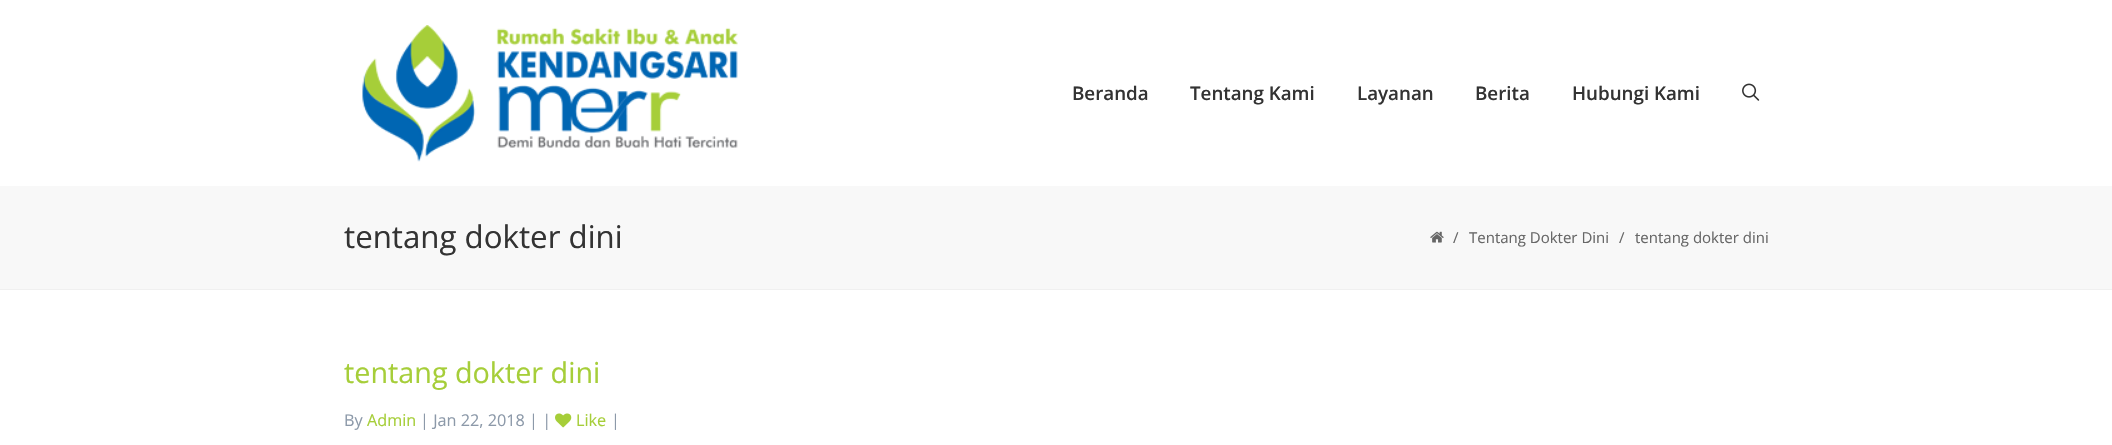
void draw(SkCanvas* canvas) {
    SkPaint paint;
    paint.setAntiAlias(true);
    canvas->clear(0xFFFFFFFF);
    canvas->drawImageRect(SkImages::DeferredFromEncodedData(SkData::MakeFromFileName("img1.png")), SkRect::MakeXYWH(362, 25, 376, 137), SkSamplingOptions());
    SkFont font1(fontMgr->matchFamilyStyle("Open Sans", SkFontStyle(600, SkFontStyle::kNormal_Width, SkFontStyle::kUpright_Slant)), 18.75f);
    font1.setSubpixel(true);
    paint.setColor(0xFF333333);
    canvas->drawString("Beranda", 1072, 100, font1, paint);
    canvas->drawString("Tentang Kami", 1190, 100, font1, paint);
    canvas->drawString("Layanan", 1357, 100, font1, paint);
    canvas->drawString("Berita", 1475, 100, font1, paint);
    canvas->drawString("Hubungi Kami", 1572, 100, font1, paint);
    canvas->drawImageRect(SkImages::DeferredFromEncodedData(SkData::MakeFromFileName("img2.png")), SkRect::MakeXYWH(1742, 83, 18, 18), SkSamplingOptions());
    paint.setColor(0xFFF8F8F8);
    canvas->drawRect(SkRect::MakeXYWH(0, 186, 2112, 103), paint);
    paint.setColor(0xFFF0F0F0);
    canvas->drawRect(SkRect::MakeXYWH(0, 289, 2112, 1), paint);
    SkFont font2(fontMgr->matchFamilyStyle("Open Sans", SkFontStyle::Normal()), 31.25f);
    font2.setSubpixel(true);
    paint.setColor(0xFF333333);
    canvas->drawString("tentang dokter dini", 344, 248, font2, paint);
    canvas->drawImageRect(SkImages::DeferredFromEncodedData(SkData::MakeFromFileName("img3.png")), SkRect::MakeXYWH(1430, 231, 14, 12), SkSamplingOptions());
    SkFont font3(fontMgr->matchFamilyStyle("Open Sans", SkFontStyle::Normal()), 15);
    font3.setSubpixel(true);
    paint.setColor(0xFF676767);
    canvas->drawString("/", 1453, 243, font3, paint);
    canvas->drawString("Tentang Dokter Dini", 1469, 243, font3, paint);
    canvas->drawString("/", 1619, 243, font3, paint);
    canvas->drawString("tentang dokter dini", 1635, 243, font3, paint);
    SkFont font4(fontMgr->matchFamilyStyle("Open Sans", SkFontStyle::Normal()), 28.75f);
    font4.setSubpixel(true);
    paint.setColor(0xFFA6CE39);
    canvas->drawString("tentang dokter dini", 344, 383, font4, paint);
    SkFont font5(fontMgr->matchFamilyStyle("Open Sans", SkFontStyle::Normal()), 16.25f);
    font5.setSubpixel(true);
    paint.setColor(0xFF8C99A9);
    canvas->drawString("By", 344, 426, font5, paint);
    paint.setColor(0xFFA6CE39);
    canvas->drawString("Admin", 367, 426, font5, paint);
    paint.setColor(0xFF8C99A9);
    canvas->drawString("| Jan 22, 2018 | |", 420, 426, font5, paint);
    canvas->drawImageRect(SkImages::DeferredFromEncodedData(SkData::MakeFromFileName("img4.png")), SkRect::MakeXYWH(555, 413, 17, 15), SkSamplingOptions());
    paint.setColor(0xFFA6CE39);
    canvas->drawString("Like", 576, 426, font5, paint);
    paint.setColor(0xFF8C99A9);
    canvas->drawString("|", 611, 426, font5, paint);
}
